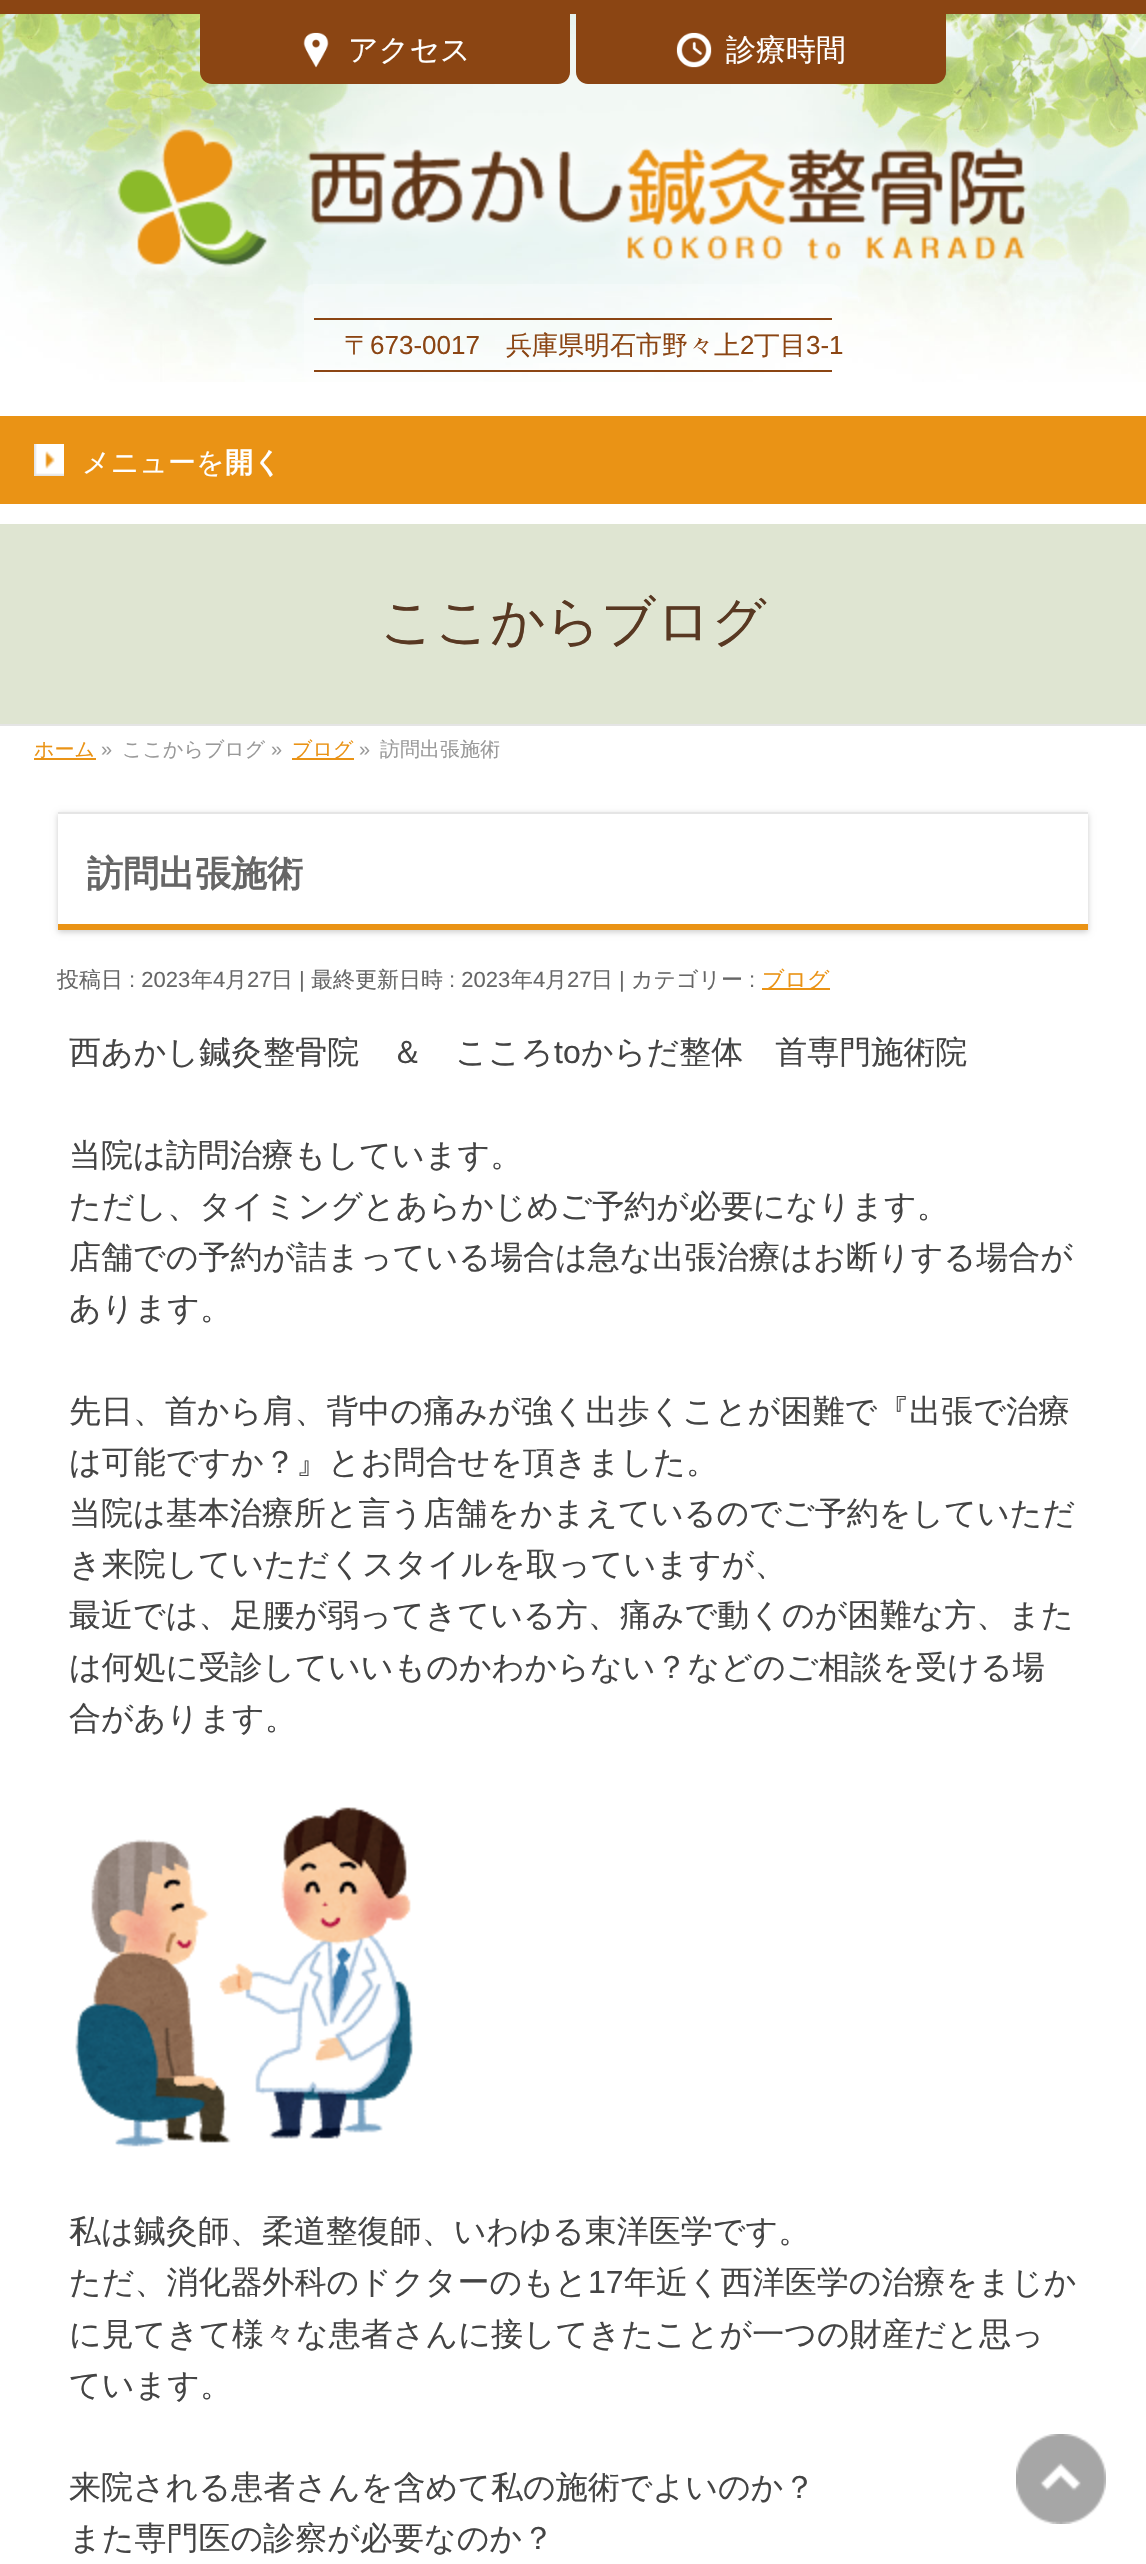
void draw(SkCanvas* canvas) {
    SkPaint paint;
    paint.setAntiAlias(true);
    canvas->clear(0xFFFFFFFF);
    canvas->drawImageRect(SkImages::DeferredFromEncodedData(SkData::MakeFromFileName("img1.png")), SkRect::MakeXYWH(0, 14, 1146, 368), SkSamplingOptions());
    paint.setColor(0xFF8B4513);
    canvas->drawRect(SkRect::MakeXYWH(0, 0, 1146, 14), paint);
    canvas->drawPath(SkPathBuilder().moveTo(200, 14).lineTo(570, 14).lineTo(570, 72).cubicTo(570, 78.5f, 564.5f, 84, 558, 84).lineTo(212, 84).cubicTo(205.5f, 84, 200, 78.5f, 200, 72).close().detach(), paint);
    canvas->drawImageRect(SkImages::DeferredFromEncodedData(SkData::MakeFromFileName("img2.png")), SkRect::MakeXYWH(303, 32, 26, 36), SkSamplingOptions());
    SkFont font1(fontMgr->matchFamilyStyle("WenQuanYi Zen Hei", SkFontStyle(500, SkFontStyle::kNormal_Width, SkFontStyle::kUpright_Slant)), 30);
    font1.setSubpixel(true);
    paint.setColor(0xFFFFFFFF);
    canvas->drawString("アクセス", 348, 60, font1, paint);
    paint.setColor(0xFF8B4513);
    canvas->drawPath(SkPathBuilder().moveTo(576, 14).lineTo(946, 14).lineTo(946, 72).cubicTo(946, 78.5f, 940.5f, 84, 934, 84).lineTo(588, 84).cubicTo(581.5f, 84, 576, 78.5f, 576, 72).close().detach(), paint);
    canvas->drawImageRect(SkImages::DeferredFromEncodedData(SkData::MakeFromFileName("img3.png")), SkRect::MakeXYWH(676, 32, 36, 36), SkSamplingOptions());
    paint.setColor(0xFFFFFFFF);
    canvas->drawString("診療時間", 726, 60, font1, paint);
    canvas->drawImageRect(SkImages::DeferredFromEncodedData(SkData::MakeFromFileName("img4.png")), SkRect::MakeXYWH(105, 112, 931, 165), SkSamplingOptions());
    paint.setColor(0x4DFFFFFF);
    canvas->drawRoundRect(SkRect::MakeXYWH(304, 284, 538, 102), 10, 10, paint);
    paint.setColor(0xFF8B4513);
    canvas->drawRect(SkRect::MakeXYWH(314, 318, 518, 2), paint);
    canvas->drawRect(SkRect::MakeXYWH(314, 370, 518, 2), paint);
    SkFont font2(fontMgr->matchFamilyStyle("WenQuanYi Zen Hei", SkFontStyle(500, SkFontStyle::kNormal_Width, SkFontStyle::kUpright_Slant)), 26);
    font2.setSubpixel(true);
    canvas->drawString("〒", 344, 354, font2, paint);
    SkFont font3(fontMgr->matchFamilyStyle("Liberation Sans", SkFontStyle::Normal()), 26);
    font3.setSubpixel(true);
    canvas->drawString("673-0017", 370, 354, font3, paint);
    canvas->drawString("兵庫県明石市野々上", 506, 354, font2, paint);
    canvas->drawString("2", 740, 354, font3, paint);
    canvas->drawString("丁目", 754, 354, font2, paint);
    canvas->drawString("3-1", 806, 354, font3, paint);
    paint.setColor(0xFFEA9315);
    canvas->drawRect(SkRect::MakeXYWH(0, 416, 1146, 88), paint);
    canvas->drawImageRect(SkImages::DeferredFromEncodedData(SkData::MakeFromFileName("img5.png")), SkRect::MakeXYWH(34, 444, 30, 32), SkSamplingOptions());
    SkFont font4(fontMgr->matchFamilyStyle("WenQuanYi Zen Hei", SkFontStyle(500, SkFontStyle::kNormal_Width, SkFontStyle::kUpright_Slant)), 28);
    font4.setSubpixel(true);
    paint.setColor(0xFFFFFFFF);
    canvas->drawString("メニューを", 82, 472, font4, paint);
    SkFont font5(fontMgr->matchFamilyStyle("WenQuanYi Zen Hei", SkFontStyle::Bold()), 28);
    font5.setSubpixel(true);
    canvas->drawString("開く", 225, 472, font5, paint);
    paint.setColor(0xFFDFE5D2);
    canvas->drawRect(SkRect::MakeXYWH(0, 524, 1146, 200), paint);
    paint.setColor(0xFFE5E5E5);
    canvas->drawRect(SkRect::MakeXYWH(0, 724, 1146, 2), paint);
    SkFont font6(fontMgr->matchFamilyStyle("WenQuanYi Zen Hei", SkFontStyle(500, SkFontStyle::kNormal_Width, SkFontStyle::kUpright_Slant)), 54);
    font6.setSubpixel(true);
    paint.setColor(0xFF583822);
    canvas->drawString("ここからブログ", 380, 640, font6, paint);
    paint.setColor(0xFFEA9315);
    canvas->drawRect(SkRect::MakeXYWH(34, 758, 62, 2), paint);
    SkFont font7(fontMgr->matchFamilyStyle("WenQuanYi Zen Hei", SkFontStyle(500, SkFontStyle::kNormal_Width, SkFontStyle::kUpright_Slant)), 20);
    font7.setSubpixel(true);
    canvas->drawString("ホーム", 34, 756, font7, paint);
    SkFont font8(fontMgr->matchFamilyStyle("Liberation Sans", SkFontStyle::Normal()), 20);
    font8.setSubpixel(true);
    paint.setColor(0xFF999999);
    canvas->drawString("»", 101, 756, font8, paint);
    canvas->drawString("ここからブログ", 122, 756, font7, paint);
    canvas->drawString("»", 271, 756, font8, paint);
    paint.setColor(0xFFEA9315);
    canvas->drawRect(SkRect::MakeXYWH(292, 758, 62, 2), paint);
    canvas->drawString("ブログ", 292, 756, font7, paint);
    paint.setColor(0xFF999999);
    canvas->drawString("»", 359, 756, font8, paint);
    canvas->drawString("訪問出張施術", 380, 756, font7, paint);
    canvas->save();
    canvas->clipPath(SkPathBuilder(SkPathFillType::kEvenOdd).moveTo(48, 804).lineTo(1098, 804).lineTo(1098, 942).lineTo(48, 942).close().moveTo(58, 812).lineTo(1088, 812).lineTo(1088, 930).lineTo(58, 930).close().detach(), true);
    paint.setColor(0x33000000);
    paint.setMaskFilter(SkMaskFilter::MakeBlur(kNormal_SkBlurStyle, 3));
    canvas->drawRect(SkRect::MakeXYWH(58, 814, 1030, 118), paint);
    paint.setMaskFilter(nullptr);
    canvas->restore();
    paint.setColor(0xFFE5E5E5);
    canvas->drawRect(SkRect::MakeXYWH(58, 812, 1030, 2), paint);
    paint.setColor(0xFFEA9315);
    canvas->drawRect(SkRect::MakeXYWH(58, 924, 1030, 6), paint);
    SkFont font9(fontMgr->matchFamilyStyle("WenQuanYi Zen Hei", SkFontStyle::Bold()), 36);
    font9.setSubpixel(true);
    paint.setColor(0xFF666666);
    canvas->drawString("訪問出張施術", 87, 886, font9, paint);
    SkFont font10(fontMgr->matchFamilyStyle("WenQuanYi Zen Hei", SkFontStyle(500, SkFontStyle::kNormal_Width, SkFontStyle::kUpright_Slant)), 22);
    font10.setSubpixel(true);
    canvas->drawString("投稿日", 57, 987, font10, paint);
    SkFont font11(fontMgr->matchFamilyStyle("Liberation Sans", SkFontStyle::Normal()), 22);
    font11.setSubpixel(true);
    canvas->drawString(": 2023", 129, 987, font11, paint);
    canvas->drawString("年", 191, 987, font10, paint);
    canvas->drawString("4", 213, 987, font11, paint);
    canvas->drawString("月", 225, 987, font10, paint);
    canvas->drawString("27", 247, 987, font11, paint);
    canvas->drawString("日", 271, 987, font10, paint);
    canvas->drawString("|", 299, 987, font11, paint);
    canvas->drawString("最終更新日時", 311, 987, font10, paint);
    canvas->drawString(": 2023", 449, 987, font11, paint);
    canvas->drawString("年", 511, 987, font10, paint);
    canvas->drawString("4", 533, 987, font11, paint);
    canvas->drawString("月", 545, 987, font10, paint);
    canvas->drawString("27", 567, 987, font11, paint);
    canvas->drawString("日", 591, 987, font10, paint);
    canvas->drawString("|", 619, 987, font11, paint);
    canvas->drawString("カテゴリー", 631, 987, font10, paint);
    canvas->drawString(":", 749, 987, font11, paint);
    paint.setColor(0xFFEA9315);
    canvas->drawRect(SkRect::MakeXYWH(762, 988, 68, 2), paint);
    canvas->drawString("ブログ", 762, 987, font10, paint);
    SkFont font12(fontMgr->matchFamilyStyle("WenQuanYi Zen Hei", SkFontStyle(500, SkFontStyle::kNormal_Width, SkFontStyle::kUpright_Slant)), 32);
    font12.setSubpixel(true);
    paint.setColor(0xFF444444);
    canvas->drawString("西あかし鍼灸整骨院　＆　こころ", 69, 1063, font12, paint);
    SkFont font13(fontMgr->matchFamilyStyle("Liberation Sans", SkFontStyle::Normal()), 32);
    font13.setSubpixel(true);
    canvas->drawString("to", 554, 1063, font13, paint);
    canvas->drawString("からだ整体　首専門施術院", 581, 1063, font12, paint);
    canvas->drawString("当院は訪問治療もしています。", 69, 1166, font12, paint);
    canvas->drawString("ただし、タイミングとあらかじめご予約が必要になります。", 69, 1217, font12, paint);
    canvas->drawString("店舗での予約が詰まっている場合は急な出張治療はお断りする場合が", 69, 1268, font12, paint);
    canvas->drawString("あります。", 69, 1319, font12, paint);
    canvas->drawString("先日、首から肩、背中の痛みが強く出歩くことが困難で『出張で治療", 69, 1422, font12, paint);
    canvas->drawString("は可能ですか？』とお問合せを頂きました。", 69, 1473, font12, paint);
    canvas->drawString("当院は基本治療所と言う店舗をかまえているのでご予約をしていただ", 69, 1524, font12, paint);
    canvas->drawString("き来院していただくスタイルを取っていますが、", 69, 1575, font12, paint);
    canvas->drawString("最近では、足腰が弱ってきている方、痛みで動くのが困難な方、また", 69, 1626, font12, paint);
    canvas->drawString("は何処に受診していいものかわからない？などのご相談を受ける場", 69, 1678, font12, paint);
    canvas->drawString("合があります。", 69, 1729, font12, paint);
    canvas->drawImageRect(SkImages::DeferredFromEncodedData(SkData::MakeFromFileName("img6.png")), SkRect::MakeXYWH(75, 1807, 338, 340), SkSamplingOptions());
    canvas->drawString("私は鍼灸師、柔道整復師、いわゆる東洋医学です。", 69, 2242, font12, paint);
    canvas->drawString("ただ、消化器外科のドクターのもと", 69, 2293, font12, paint);
    canvas->drawString("17", 588, 2293, font13, paint);
    canvas->drawString("年近く西洋医学の治療をまじか", 624, 2293, font12, paint);
    canvas->drawString("に見てきて様々な患者さんに接してきたことが一つの財産だと思っ", 69, 2345, font12, paint);
    canvas->drawString("ています。", 69, 2396, font12, paint);
    canvas->drawString("来院される患者さんを含めて私の施術でよいのか？", 69, 2498, font12, paint);
    canvas->drawString("また専門医の診察が必要なのか？", 69, 2549, font12, paint);
    canvas->drawImageRect(SkImages::DeferredFromEncodedData(SkData::MakeFromFileName("img7.png")), SkRect::MakeXYWH(1016, 2434, 90, 90), SkSamplingOptions());
}
